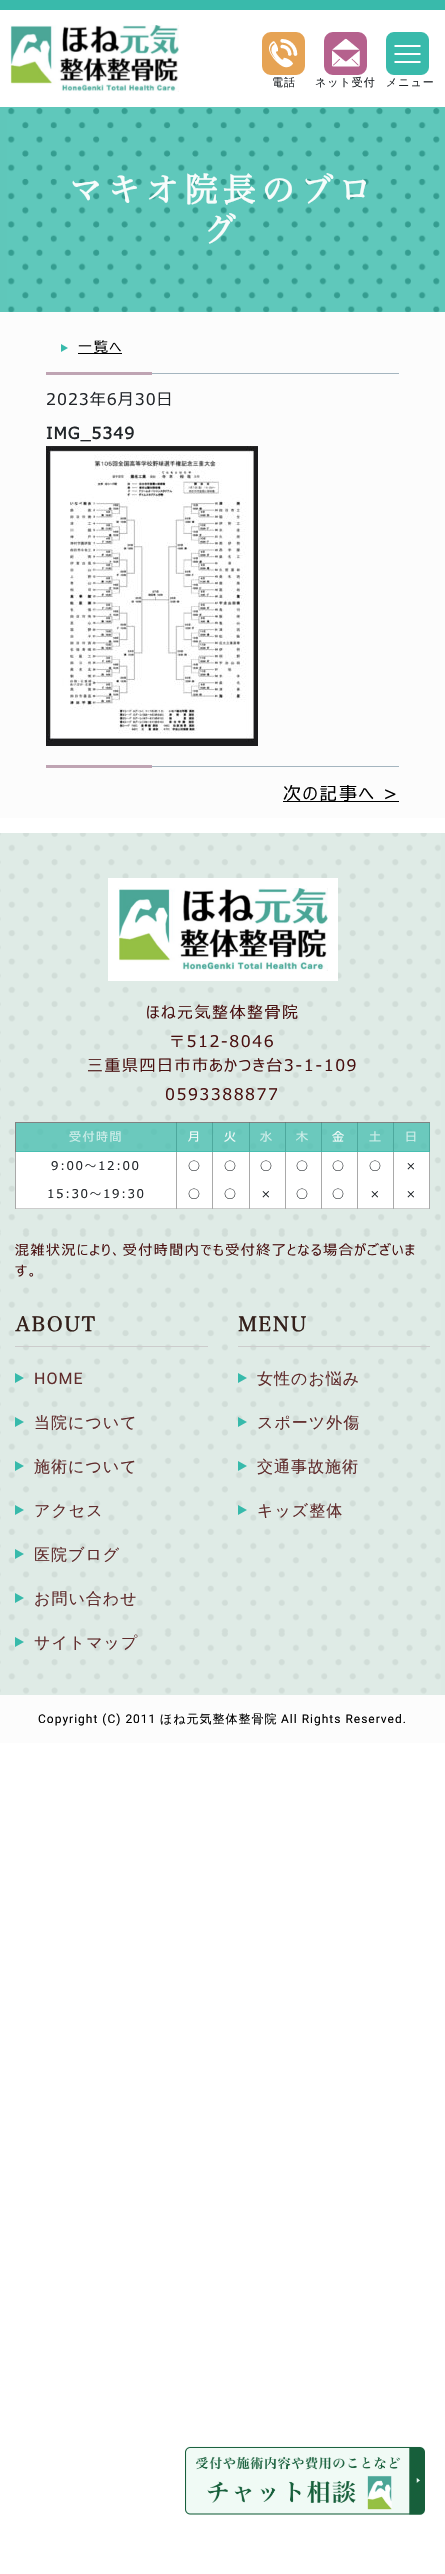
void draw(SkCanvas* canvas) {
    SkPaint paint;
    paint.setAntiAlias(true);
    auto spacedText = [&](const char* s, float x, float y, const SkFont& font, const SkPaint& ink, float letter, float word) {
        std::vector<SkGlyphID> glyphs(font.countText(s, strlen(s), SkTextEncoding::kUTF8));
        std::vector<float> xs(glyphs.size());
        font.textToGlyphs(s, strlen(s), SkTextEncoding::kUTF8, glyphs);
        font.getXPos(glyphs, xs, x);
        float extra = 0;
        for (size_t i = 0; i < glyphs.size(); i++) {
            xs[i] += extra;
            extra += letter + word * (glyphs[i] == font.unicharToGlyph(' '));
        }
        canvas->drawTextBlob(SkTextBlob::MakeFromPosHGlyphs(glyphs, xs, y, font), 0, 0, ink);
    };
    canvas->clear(0xFFFFFFFF);
    paint.setColor(0xFF39BAAB);
    canvas->drawRect(SkRect::MakeXYWH(0, 0, 445, 10), paint);
    canvas->drawImageRect(SkImages::DeferredFromEncodedData(SkData::MakeFromFileName("img1.png")), SkRect::MakeXYWH(10, 25, 169, 67), SkSamplingOptions());
    canvas->drawImageRect(SkImages::DeferredFromEncodedData(SkData::MakeFromFileName("img2.png")), SkRect::MakeXYWH(262, 32, 43, 43), SkSamplingOptions());
    SkFont font1(fontMgr->matchFamilyStyle("WenQuanYi Zen Hei", SkFontStyle(500, SkFontStyle::kNormal_Width, SkFontStyle::kUpright_Slant)), 11);
    font1.setSubpixel(true);
    paint.setColor(0xFF212529);
    spacedText("電話", 272, 86, font1, paint, 1, 0);
    canvas->drawImageRect(SkImages::DeferredFromEncodedData(SkData::MakeFromFileName("img3.png")), SkRect::MakeXYWH(324, 32, 43, 43), SkSamplingOptions());
    spacedText("ネット受付", 315, 86, font1, paint, 1, 0);
    canvas->drawImageRect(SkImages::DeferredFromEncodedData(SkData::MakeFromFileName("img4.png")), SkRect::MakeXYWH(386, 32, 43, 43), SkSamplingOptions());
    spacedText("メニュー", 386, 86, font1, paint, 1, 0);
    paint.setColor(0xFFFCFCFC);
    canvas->drawRect(SkRect::MakeXYWH(0, 312, 445, 506), paint);
    paint.setColor(0xFF5FC7BA);
    canvas->drawRect(SkRect::MakeXYWH(0, 107, 445, 205), paint);
    canvas->drawImageRect(SkImages::DeferredFromEncodedData(SkData::MakeFromFileName("img5.png")), SkRect::MakeXYWH(7, 108, 433, 204), SkSamplingOptions());
    SkFont font2(fontMgr->matchFamilyStyle("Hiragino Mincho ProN", SkFontStyle::Bold()), 33);
    font2.setSubpixel(true);
    paint.setColor(0xFFF7FCFB);
    spacedText("マキオ院長のブロ", 69, 202, font2, paint, 5.5f, 0);
    spacedText("グ", 203, 242, font2, paint, 5.5f, 0);
    SkFont font3(fontMgr->matchFamilyStyle("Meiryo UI", SkFontStyle::Normal()), 14);
    font3.setSubpixel(true);
    paint.setColor(0xFF000000);
    spacedText("一覧へ", 78, 352, font3, paint, 1.75f, 0);
    paint.setColor(0xFF37BAAB);
    canvas->drawPath(SkPathBuilder().moveTo(68, 348).lineTo(61, 352).lineTo(61, 344).close().detach(), paint);
    paint.setColor(0xFF000000);
    canvas->drawRect(SkRect::MakeXYWH(78, 353, 44, 1), paint);
    paint.setColor(0xFFBFA4B3);
    canvas->drawRect(SkRect::MakeXYWH(46, 372, 106, 3), paint);
    paint.setColor(0xFFA4B5BF);
    canvas->drawRect(SkRect::MakeXYWH(152, 373, 247, 1), paint);
    SkFont font4(fontMgr->matchFamilyStyle("Meiryo UI", SkFontStyle::Normal()), 16);
    font4.setSubpixel(true);
    paint.setColor(0xFF212529);
    spacedText("2023年6月30日", 46, 405, font4, paint, 1, 0);
    SkFont font5(fontMgr->matchFamilyStyle("Meiryo UI", SkFontStyle::Bold()), 16);
    font5.setSubpixel(true);
    spacedText("IMG_5349", 46, 439, font5, paint, 1, 0);
    canvas->drawImageRect(SkImages::DeferredFromEncodedData(SkData::MakeFromFileName("img6.png")), SkRect::MakeXYWH(46, 446, 212, 300), SkSamplingOptions());
    paint.setColor(0xFFBFA4B3);
    canvas->drawRect(SkRect::MakeXYWH(46, 765, 106, 3), paint);
    paint.setColor(0xFFA4B5BF);
    canvas->drawRect(SkRect::MakeXYWH(152, 766, 247, 1), paint);
    paint.setColor(0xFF000000);
    canvas->drawRect(SkRect::MakeXYWH(283, 801, 116, 1), paint);
    SkFont font6(fontMgr->matchFamilyStyle("Meiryo UI", SkFontStyle::Normal()), 18);
    font6.setSubpixel(true);
    spacedText("次の記事へ >", 283, 800, font6, paint, 1.75f, 0);
    paint.setColor(0xFFDDEAE5);
    canvas->drawRect(SkRect::MakeXYWH(0, 833, 445, 862), paint);
    canvas->drawImageRect(SkImages::DeferredFromEncodedData(SkData::MakeFromFileName("img7.png")), SkRect::MakeXYWH(0, 833, 441, 862), SkSamplingOptions());
    paint.setStyle(SkPaint::kStroke_Style);
    paint.setStrokeWidth(10);
    paint.setColor(0xFFFFFFFF);
    canvas->drawRect(SkRect::MakeXYWH(113, 883, 220, 93), paint);
    canvas->drawImageRect(SkImages::DeferredFromEncodedData(SkData::MakeFromFileName("img8.png")), SkRect::MakeXYWH(118, 888, 210, 83), SkSamplingOptions());
    paint.setStyle(SkPaint::kFill_Style);
    paint.setColor(0xFF480F0F);
    spacedText("ほね元気整体整骨院", 146, 1018, font4, paint, 1.5f, 0);
    spacedText("〒512-8046", 169, 1047, font4, paint, 1.5f, 0);
    spacedText("三重県四日市市あかつき台3-1-109", 87, 1071, font4, paint, 1.5f, 0);
    spacedText("0593388877", 165, 1100, font4, paint, 1.5f, 0);
    paint.setColor(0xFFA9A9A9);
    canvas->drawRect(SkRect::MakeXYWH(429, 1152, 1, 28), paint);
    paint.setColor(0xFFCCCCCC);
    canvas->drawRect(SkRect::MakeXYWH(15, 1208, 415, 1), paint);
    paint.setColor(0xFFA9A9A9);
    canvas->drawRect(SkRect::MakeXYWH(15, 1152, 1, 57), paint);
    paint.setColor(0xFF818181);
    canvas->drawRect(SkRect::MakeXYWH(393, 1122, 37, 1), paint);
    canvas->drawRect(SkRect::MakeXYWH(429, 1122, 1, 30), paint);
    paint.setColor(0xFFFFFFFF);
    canvas->drawRect(SkRect::MakeXYWH(16, 1152, 413, 56), paint);
    paint.setColor(0xFFA9A9A9);
    canvas->drawRect(SkRect::MakeXYWH(393, 1151, 1, 58), paint);
    paint.setColor(0xB339BAAB);
    canvas->drawRect(SkRect::MakeXYWH(393, 1151, 37, 1), paint);
    paint.setColor(0xB3707070);
    canvas->drawRect(SkRect::MakeXYWH(393, 1122, 1, 30), paint);
    paint.setColor(0xFF818181);
    canvas->drawRect(SkRect::MakeXYWH(357, 1122, 37, 1), paint);
    paint.setColor(0xB3707070);
    canvas->drawRect(SkRect::MakeXYWH(393, 1122, 1, 30), paint);
    paint.setColor(0xFFA9A9A9);
    canvas->drawRect(SkRect::MakeXYWH(357, 1151, 1, 58), paint);
    paint.setColor(0xB339BAAB);
    canvas->drawRect(SkRect::MakeXYWH(357, 1151, 37, 1), paint);
    paint.setColor(0xB3707070);
    canvas->drawRect(SkRect::MakeXYWH(357, 1122, 1, 30), paint);
    paint.setColor(0xFF818181);
    canvas->drawRect(SkRect::MakeXYWH(321, 1122, 37, 1), paint);
    paint.setColor(0xB3707070);
    canvas->drawRect(SkRect::MakeXYWH(357, 1122, 1, 30), paint);
    paint.setColor(0xFFA9A9A9);
    canvas->drawRect(SkRect::MakeXYWH(321, 1151, 1, 58), paint);
    paint.setColor(0xB339BAAB);
    canvas->drawRect(SkRect::MakeXYWH(321, 1151, 37, 1), paint);
    paint.setColor(0xB3707070);
    canvas->drawRect(SkRect::MakeXYWH(321, 1122, 1, 30), paint);
    paint.setColor(0xFF818181);
    canvas->drawRect(SkRect::MakeXYWH(285, 1122, 37, 1), paint);
    paint.setColor(0xB3707070);
    canvas->drawRect(SkRect::MakeXYWH(321, 1122, 1, 30), paint);
    paint.setColor(0xFFA9A9A9);
    canvas->drawRect(SkRect::MakeXYWH(285, 1151, 1, 58), paint);
    paint.setColor(0xB339BAAB);
    canvas->drawRect(SkRect::MakeXYWH(285, 1151, 37, 1), paint);
    paint.setColor(0xB3707070);
    canvas->drawRect(SkRect::MakeXYWH(285, 1122, 1, 30), paint);
    paint.setColor(0xFF818181);
    canvas->drawRect(SkRect::MakeXYWH(249, 1122, 37, 1), paint);
    paint.setColor(0xB3707070);
    canvas->drawRect(SkRect::MakeXYWH(285, 1122, 1, 30), paint);
    paint.setColor(0xFFA9A9A9);
    canvas->drawRect(SkRect::MakeXYWH(249, 1151, 1, 58), paint);
    paint.setColor(0xB339BAAB);
    canvas->drawRect(SkRect::MakeXYWH(249, 1151, 37, 1), paint);
    paint.setColor(0xB3707070);
    canvas->drawRect(SkRect::MakeXYWH(249, 1122, 1, 30), paint);
    paint.setColor(0xFF818181);
    canvas->drawRect(SkRect::MakeXYWH(212, 1122, 38, 1), paint);
    paint.setColor(0xB3707070);
    canvas->drawRect(SkRect::MakeXYWH(249, 1122, 1, 30), paint);
    paint.setColor(0xFFA9A9A9);
    canvas->drawRect(SkRect::MakeXYWH(212, 1151, 1, 58), paint);
    paint.setColor(0xB339BAAB);
    canvas->drawRect(SkRect::MakeXYWH(212, 1151, 38, 1), paint);
    paint.setColor(0xB3707070);
    canvas->drawRect(SkRect::MakeXYWH(212, 1122, 1, 30), paint);
    paint.setColor(0xFF818181);
    canvas->drawRect(SkRect::MakeXYWH(176, 1122, 37, 1), paint);
    paint.setColor(0xB3707070);
    canvas->drawRect(SkRect::MakeXYWH(212, 1122, 1, 30), paint);
    paint.setColor(0xFFA9A9A9);
    canvas->drawRect(SkRect::MakeXYWH(176, 1151, 1, 58), paint);
    paint.setColor(0xB339BAAB);
    canvas->drawRect(SkRect::MakeXYWH(176, 1151, 37, 1), paint);
    paint.setColor(0xB3707070);
    canvas->drawRect(SkRect::MakeXYWH(176, 1122, 1, 30), paint);
    paint.setColor(0xFF818181);
    canvas->drawRect(SkRect::MakeXYWH(15, 1122, 162, 1), paint);
    paint.setColor(0xB3707070);
    canvas->drawRect(SkRect::MakeXYWH(176, 1122, 1, 30), paint);
    paint.setColor(0xB339BAAB);
    canvas->drawRect(SkRect::MakeXYWH(15, 1151, 162, 1), paint);
    canvas->drawRect(SkRect::MakeXYWH(16, 1123, 414, 29), paint);
    paint.setColor(0xFF818181);
    canvas->drawRect(SkRect::MakeXYWH(15, 1122, 1, 30), paint);
    SkFont font7(fontMgr->matchFamilyStyle("Meiryo UI", SkFontStyle::Normal()), 12);
    font7.setSubpixel(true);
    paint.setColor(0xFFD2EFEB);
    spacedText("受付時間", 69, 1141, font7, paint, 1.5f, 0);
    paint.setColor(0xFFF7FCFB);
    spacedText("月", 188, 1141, font7, paint, 1.5f, 0);
    spacedText("火", 224, 1141, font7, paint, 1.5f, 0);
    paint.setColor(0xFFD2EFEB);
    spacedText("水", 260, 1141, font7, paint, 1.5f, 0);
    spacedText("木", 296, 1141, font7, paint, 1.5f, 0);
    paint.setColor(0xFFF7FCFB);
    spacedText("金", 332, 1141, font7, paint, 1.5f, 0);
    paint.setColor(0xFFD2EFEB);
    spacedText("土", 369, 1141, font7, paint, 1.5f, 0);
    spacedText("日", 405, 1141, font7, paint, 1.5f, 0);
    paint.setColor(0xFF212529);
    spacedText("9:00〜12:00", 51, 1170, font7, paint, 1.5f, 0);
    spacedText("◯", 188, 1170, font7, paint, 1.5f, 0);
    spacedText("◯", 224, 1170, font7, paint, 1.5f, 0);
    spacedText("◯", 260, 1170, font7, paint, 1.5f, 0);
    spacedText("◯", 296, 1170, font7, paint, 1.5f, 0);
    spacedText("◯", 332, 1170, font7, paint, 1.5f, 0);
    spacedText("◯", 369, 1170, font7, paint, 1.5f, 0);
    spacedText("×", 406, 1170, font7, paint, 1.5f, 0);
    spacedText("15:30〜19:30", 47, 1198, font7, paint, 1.5f, 0);
    spacedText("◯", 188, 1198, font7, paint, 1.5f, 0);
    spacedText("◯", 224, 1198, font7, paint, 1.5f, 0);
    spacedText("×", 261, 1198, font7, paint, 1.5f, 0);
    spacedText("◯", 296, 1198, font7, paint, 1.5f, 0);
    spacedText("◯", 332, 1198, font7, paint, 1.5f, 0);
    spacedText("×", 370, 1198, font7, paint, 1.5f, 0);
    paint.setColor(0xFFA9A9A9);
    canvas->drawRect(SkRect::MakeXYWH(429, 1180, 1, 29), paint);
    paint.setColor(0xFF212529);
    spacedText("×", 406, 1198, font7, paint, 1.5f, 0);
    paint.setColor(0xFF480F0F);
    spacedText("混雑状況により、受付時間内でも受付終了となる場合がございま", 15, 1255, font3, paint, 1.5f, 0);
    spacedText("す。", 15, 1276, font3, paint, 1.5f, 0);
    paint.setColor(0xFFCCCCCC);
    canvas->drawRect(SkRect::MakeXYWH(15, 1346, 193, 1), paint);
    SkFont font8(fontMgr->matchFamilyStyle("Hiragino Mincho ProN", SkFontStyle::Bold()), 20);
    font8.setSubpixel(true);
    paint.setColor(0xFF34201B);
    spacedText("ABOUT", 15, 1332, font8, paint, 1.75f, 0);
    SkFont font9(fontMgr->matchFamilyStyle("Roboto", SkFontStyle::Normal()), 16);
    font9.setSubpixel(true);
    paint.setColor(0xFF602C2C);
    spacedText("HOME", 34, 1384, font9, paint, 1, 0);
    paint.setColor(0xFF37BAAB);
    canvas->drawPath(SkPathBuilder().moveTo(24, 1378).lineTo(15, 1383).lineTo(15, 1373).close().detach(), paint);
    SkFont font10(fontMgr->matchFamilyStyle("WenQuanYi Zen Hei", SkFontStyle(500, SkFontStyle::kNormal_Width, SkFontStyle::kUpright_Slant)), 16);
    font10.setSubpixel(true);
    paint.setColor(0xFF602C2C);
    spacedText("当院について", 34, 1428, font10, paint, 1, 0);
    paint.setColor(0xFF37BAAB);
    canvas->drawPath(SkPathBuilder().moveTo(24, 1422).lineTo(15, 1427).lineTo(15, 1417).close().detach(), paint);
    paint.setColor(0xFF602C2C);
    spacedText("施術について", 34, 1472, font10, paint, 1, 0);
    paint.setColor(0xFF37BAAB);
    canvas->drawPath(SkPathBuilder().moveTo(24, 1466).lineTo(15, 1471).lineTo(15, 1461).close().detach(), paint);
    paint.setColor(0xFF602C2C);
    spacedText("アクセス", 34, 1516, font10, paint, 1, 0);
    paint.setColor(0xFF37BAAB);
    canvas->drawPath(SkPathBuilder().moveTo(24, 1510).lineTo(15, 1515).lineTo(15, 1505).close().detach(), paint);
    paint.setColor(0xFF602C2C);
    spacedText("医院ブログ", 34, 1560, font10, paint, 1, 0);
    paint.setColor(0xFF37BAAB);
    canvas->drawPath(SkPathBuilder().moveTo(24, 1554).lineTo(15, 1559).lineTo(15, 1549).close().detach(), paint);
    paint.setColor(0xFF602C2C);
    spacedText("お問い合わせ", 34, 1604, font10, paint, 1, 0);
    paint.setColor(0xFF37BAAB);
    canvas->drawPath(SkPathBuilder().moveTo(24, 1598).lineTo(15, 1603).lineTo(15, 1593).close().detach(), paint);
    paint.setColor(0xFF602C2C);
    spacedText("サイトマップ", 34, 1648, font10, paint, 1, 0);
    paint.setColor(0xFF37BAAB);
    canvas->drawPath(SkPathBuilder().moveTo(24, 1642).lineTo(15, 1647).lineTo(15, 1637).close().detach(), paint);
    paint.setColor(0xFFCCCCCC);
    canvas->drawRect(SkRect::MakeXYWH(238, 1346, 192, 1), paint);
    paint.setColor(0xFF34201B);
    spacedText("MENU", 238, 1332, font8, paint, 1.75f, 0);
    paint.setColor(0xFF602C2C);
    spacedText("女性のお悩み", 257, 1384, font10, paint, 1, 0);
    paint.setColor(0xFF37BAAB);
    canvas->drawPath(SkPathBuilder().moveTo(247, 1378).lineTo(238, 1383).lineTo(238, 1373).close().detach(), paint);
    paint.setColor(0xFF602C2C);
    spacedText("スポーツ外傷", 257, 1428, font10, paint, 1, 0);
    paint.setColor(0xFF37BAAB);
    canvas->drawPath(SkPathBuilder().moveTo(247, 1422).lineTo(238, 1427).lineTo(238, 1417).close().detach(), paint);
    paint.setColor(0xFF602C2C);
    spacedText("交通事故施術", 257, 1472, font10, paint, 1, 0);
    paint.setColor(0xFF37BAAB);
    canvas->drawPath(SkPathBuilder().moveTo(247, 1466).lineTo(238, 1471).lineTo(238, 1461).close().detach(), paint);
    paint.setColor(0xFF602C2C);
    spacedText("キッズ整体", 257, 1516, font10, paint, 1, 0);
    paint.setColor(0xFF37BAAB);
    canvas->drawPath(SkPathBuilder().moveTo(247, 1510).lineTo(238, 1515).lineTo(238, 1505).close().detach(), paint);
    paint.setColor(0xFFFCFCFC);
    canvas->drawRect(SkRect::MakeXYWH(0, 1695, 445, 48), paint);
    SkFont font11(fontMgr->matchFamilyStyle("Roboto", SkFontStyle::Normal()), 12);
    font11.setSubpixel(true);
    paint.setColor(0xFF000000);
    spacedText("Copyright (C) 2011", 38, 1723, font11, paint, 1, 0);
    SkFont font12(fontMgr->matchFamilyStyle("WenQuanYi Zen Hei", SkFontStyle(500, SkFontStyle::kNormal_Width, SkFontStyle::kUpright_Slant)), 12);
    font12.setSubpixel(true);
    spacedText("ほね元気整体整骨院", 160, 1723, font12, paint, 1, 0);
    spacedText("All Rights Reserved.", 281, 1723, font11, paint, 1, 0);
    canvas->drawImageRect(SkImages::DeferredFromEncodedData(SkData::MakeFromFileName("img9.png")), SkRect::MakeXYWH(185, 2446, 240, 69), SkSamplingOptions());
}
